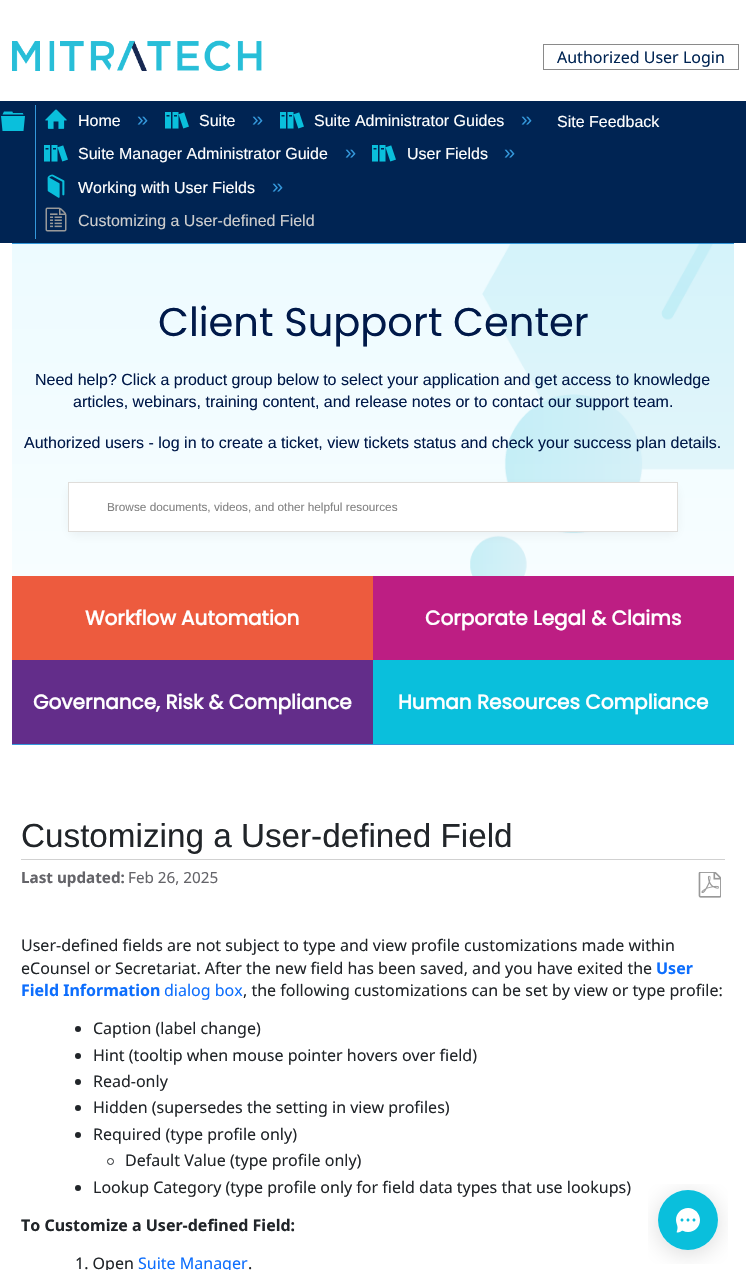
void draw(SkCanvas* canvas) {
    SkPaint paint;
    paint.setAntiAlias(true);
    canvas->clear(0xFFFFFFFF);
    canvas->drawImageRect(SkImages::DeferredFromEncodedData(SkData::MakeFromFileName("img1.png")), SkRect::MakeXYWH(12, 40, 250, 31), SkSamplingOptions());
    paint.setStyle(SkPaint::kStroke_Style);
    paint.setStrokeWidth(1);
    paint.setColor(0xFF8A8A8A);
    canvas->drawRect(SkRect::MakeXYWH(543.5f, 44.5f, 195, 25), paint);
    SkFont font1(fontMgr->matchFamilyStyle("Noto Sans", SkFontStyle::Normal()), 16);
    font1.setSubpixel(true);
    paint.setStyle(SkPaint::kFill_Style);
    paint.setColor(0xFF002453);
    canvas->drawString("Authorized User Login", 557, 63, font1, paint);
    canvas->drawRect(SkRect::MakeXYWH(0, 101, 746, 142), paint);
    canvas->drawImageRect(SkImages::DeferredFromEncodedData(SkData::MakeFromFileName("img2.png")), SkRect::MakeXYWH(1, 111, 24, 20), SkSamplingOptions());
    paint.setColor(0xFF3498DB);
    canvas->drawRect(SkRect::MakeXYWH(35, 105, 1, 134), paint);
    canvas->drawImageRect(SkImages::DeferredFromEncodedData(SkData::MakeFromFileName("img3.png")), SkRect::MakeXYWH(45, 109, 22, 20), SkSamplingOptions());
    SkFont font2(fontMgr->matchFamilyStyle("Liberation Sans", SkFontStyle::Normal()), 16);
    font2.setSubpixel(true);
    paint.setColor(0xFFFFFFFF);
    canvas->drawString("Home", 78, 126, font2, paint);
    SkFont font3(fontMgr->matchFamilyStyle("Liberation Sans", SkFontStyle::Normal()), 20);
    font3.setSubpixel(true);
    paint.setColor(0xFF3498DB);
    canvas->drawString("»", 137, 126, font3, paint);
    canvas->drawImageRect(SkImages::DeferredFromEncodedData(SkData::MakeFromFileName("img4.png")), SkRect::MakeXYWH(165, 112, 24, 17), SkSamplingOptions());
    paint.setColor(0xFFFFFFFF);
    canvas->drawString("Suite", 199, 126, font2, paint);
    paint.setColor(0xFF3498DB);
    canvas->drawString("»", 252, 126, font3, paint);
    canvas->drawImageRect(SkImages::DeferredFromEncodedData(SkData::MakeFromFileName("img4.png")), SkRect::MakeXYWH(280, 112, 24, 17), SkSamplingOptions());
    paint.setColor(0xFFFFFFFF);
    canvas->drawString("Suite Administrator Guides", 314, 126, font2, paint);
    paint.setColor(0xFF3498DB);
    canvas->drawString("»", 521, 126, font3, paint);
    canvas->drawImageRect(SkImages::DeferredFromEncodedData(SkData::MakeFromFileName("img4.png")), SkRect::MakeXYWH(44, 145, 24, 17), SkSamplingOptions());
    paint.setColor(0xFFFFFFFF);
    canvas->drawString("Suite Manager Administrator Guide", 78, 159, font2, paint);
    paint.setColor(0xFF3498DB);
    canvas->drawString("»", 345, 159, font3, paint);
    canvas->drawImageRect(SkImages::DeferredFromEncodedData(SkData::MakeFromFileName("img4.png")), SkRect::MakeXYWH(372, 145, 24, 17), SkSamplingOptions());
    paint.setColor(0xFFFFFFFF);
    canvas->drawString("User Fields", 407, 159, font2, paint);
    paint.setColor(0xFF3498DB);
    canvas->drawString("»", 504, 159, font3, paint);
    canvas->drawImageRect(SkImages::DeferredFromEncodedData(SkData::MakeFromFileName("img5.png")), SkRect::MakeXYWH(47, 174, 18, 24), SkSamplingOptions());
    paint.setColor(0xFFFFFFFF);
    canvas->drawString("Working with User Fields", 78, 193, font2, paint);
    paint.setColor(0xFF3498DB);
    canvas->drawString("»", 272, 193, font3, paint);
    canvas->drawImageRect(SkImages::DeferredFromEncodedData(SkData::MakeFromFileName("img6.png")), SkRect::MakeXYWH(45, 207, 22, 25), SkSamplingOptions());
    paint.setColor(0xFFCDCDCD);
    canvas->drawString("Customizing a User-defined Field", 78, 226, font2, paint);
    paint.setColor(0xFFFFFFFF);
    canvas->drawString("Site Feedback", 557, 127, font2, paint);
    canvas->drawImageRect(SkImages::DeferredFromEncodedData(SkData::MakeFromFileName("img7.png")), SkRect::MakeXYWH(12, 244, 722, 332), SkSamplingOptions());
    paint.setColor(0xFF3498DB);
    canvas->drawRect(SkRect::MakeXYWH(12, 243, 722, 1), paint);
    canvas->drawRect(SkRect::MakeXYWH(12, 744, 722, 1), paint);
    SkFont font4(fontMgr->matchFamilyStyle("Poppins", SkFontStyle::Normal()), 40);
    font4.setSubpixel(true);
    paint.setColor(0xFF001949);
    canvas->drawString("Client Support Center", 158, 336, font4, paint);
    canvas->drawString("Need help? Click a product group below to select your application and get access to knowledge", 35, 385, font2, paint);
    canvas->drawString("articles, webinars, training content, and release notes or to contact our support team.", 73, 407, font2, paint);
    canvas->drawString("Authorized users - log in to create a ticket, view tickets status and check your success plan details.", 24, 448, font2, paint);
    paint.setColor(0x0F131022);
    paint.setMaskFilter(SkMaskFilter::MakeBlur(kNormal_SkBlurStyle, 6));
    canvas->drawRoundRect(SkRect::MakeXYWH(69, 487, 608, 48), 7, 7, paint);
    paint.setMaskFilter(nullptr);
    paint.setColor(0xFFFFFFFF);
    canvas->drawRoundRect(SkRect::MakeXYWH(68, 482, 610, 50), 8, 8, paint);
    paint.setColor(0xE6FFFFFF);
    canvas->drawRect(SkRect::MakeXYWH(68.5f, 482.5f, 609, 49), paint);
    paint.setStyle(SkPaint::kStroke_Style);
    paint.setColor(0xFFDFDDDA);
    canvas->drawRect(SkRect::MakeXYWH(68.5f, 482.5f, 609, 49), paint);
    SkFont font5(fontMgr->matchFamilyStyle("Liberation Sans", SkFontStyle::Normal()), 11.8f);
    font5.setSubpixel(true);
    paint.setStyle(SkPaint::kFill_Style);
    paint.setColor(0xFF838383);
    canvas->drawString("Browse documents, videos, and other helpful resources", 107, 511, font5, paint);
    paint.setColor(0xFFED5B3E);
    canvas->drawRect(SkRect::MakeXYWH(12, 576, 361, 84), paint);
    SkFont font6(fontMgr->matchFamilyStyle("Poppins", SkFontStyle::Bold()), 20);
    font6.setSubpixel(true);
    paint.setColor(0xFFFFFFFF);
    canvas->drawString("Workflow Automation", 85, 625, font6, paint);
    paint.setColor(0xFFBD1E83);
    canvas->drawRect(SkRect::MakeXYWH(373, 576, 361, 84), paint);
    paint.setColor(0xFFFFFFFF);
    canvas->drawString("Corporate Legal & Claims", 425, 625, font6, paint);
    paint.setColor(0xFF632D8A);
    canvas->drawRect(SkRect::MakeXYWH(12, 660, 361, 84), paint);
    paint.setColor(0xFFFFFFFF);
    canvas->drawString("Governance, Risk & Compliance", 33, 709, font6, paint);
    paint.setColor(0xFF0ABFDC);
    canvas->drawRect(SkRect::MakeXYWH(373, 660, 361, 84), paint);
    paint.setColor(0xFFFFFFFF);
    canvas->drawString("Human Resources Compliance", 398, 709, font6, paint);
    paint.setColor(0xFFD1D1D1);
    canvas->drawRect(SkRect::MakeXYWH(21, 859, 704, 1), paint);
    SkFont font7(fontMgr->matchFamilyStyle("Liberation Sans", SkFontStyle::Normal()), 33.25f);
    font7.setSubpixel(true);
    paint.setColor(0xFF212529);
    canvas->drawString("Customizing a User-defined Field", 21, 847, font7, paint);
    SkFont font8(fontMgr->matchFamilyStyle("Noto Sans", SkFontStyle::Bold()), 15.25f);
    font8.setSubpixel(true);
    paint.setColor(0xFF646469);
    canvas->drawString("Last updated:", 21, 883, font8, paint);
    SkFont font9(fontMgr->matchFamilyStyle("Noto Sans", SkFontStyle::Normal()), 15.25f);
    font9.setSubpixel(true);
    canvas->drawString("Feb 26, 2025", 128, 883, font9, paint);
    canvas->drawImageRect(SkImages::DeferredFromEncodedData(SkData::MakeFromFileName("img8.png")), SkRect::MakeXYWH(698, 872, 23, 26), SkSamplingOptions());
    paint.setColor(0xFF212529);
    canvas->drawString("User-defined fields are not subject to type and view profile customizations made within", 21, 951, font1, paint);
    canvas->drawString("eCounsel or Secretariat. After the new field has been saved, and you have exited the", 21, 974, font1, paint);
    SkFont font10(fontMgr->matchFamilyStyle("Noto Sans", SkFontStyle::Bold()), 16);
    font10.setSubpixel(true);
    paint.setColor(0xFF0D6EFD);
    canvas->drawString("User", 656, 974, font10, paint);
    canvas->drawString("Field Information", 21, 996, font10, paint);
    canvas->drawString("dialog box", 164, 996, font1, paint);
    paint.setColor(0xFF212529);
    canvas->drawString(", the following customizations can be set by view or type profile:", 243, 996, font1, paint);
    canvas->drawCircle(78, 1029, 3, paint);
    canvas->drawString("Caption (label change)", 93, 1034, font1, paint);
    canvas->drawCircle(78, 1056, 3, paint);
    canvas->drawString("Hint (tooltip when mouse pointer hovers over field)", 93, 1061, font1, paint);
    canvas->drawCircle(78, 1082, 3, paint);
    canvas->drawString("Read-only", 93, 1087, font1, paint);
    canvas->drawCircle(78, 1108, 3, paint);
    canvas->drawString("Hidden (supersedes the setting in view profiles)", 93, 1113, font1, paint);
    canvas->drawCircle(78, 1135, 3, paint);
    canvas->drawString("Required (type profile only)", 93, 1140, font1, paint);
    paint.setStyle(SkPaint::kStroke_Style);
    canvas->drawCircle(110.5f, 1161.5f, 3, paint);
    paint.setStyle(SkPaint::kFill_Style);
    canvas->drawString("Default Value (type profile only)", 125, 1166, font1, paint);
    canvas->drawCircle(78, 1188, 3, paint);
    canvas->drawString("Lookup Category (type profile only for field data types that use lookups)", 93, 1193, font1, paint);
    canvas->drawString("To Customize a User-defined Field:", 21, 1231, font10, paint);
    canvas->drawString("1. Open", 75, 1269, font1, paint);
    paint.setColor(0xFF0D6EFD);
    canvas->drawString("Suite Manager", 138, 1269, font1, paint);
    paint.setColor(0xFF212529);
    canvas->drawString(".", 248, 1269, font1, paint);
    canvas->drawImageRect(SkImages::DeferredFromEncodedData(SkData::MakeFromFileName("img9.png")), SkRect::MakeXYWH(648, 1184, 80, 80), SkSamplingOptions());
}
